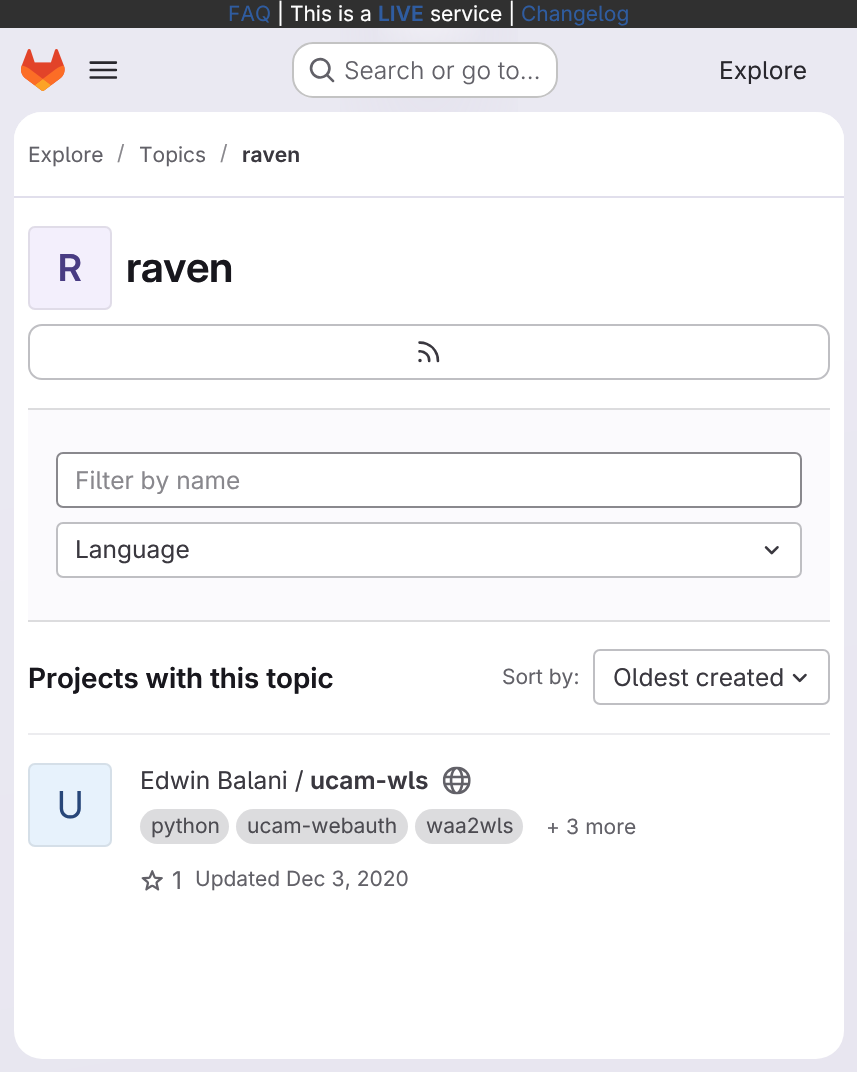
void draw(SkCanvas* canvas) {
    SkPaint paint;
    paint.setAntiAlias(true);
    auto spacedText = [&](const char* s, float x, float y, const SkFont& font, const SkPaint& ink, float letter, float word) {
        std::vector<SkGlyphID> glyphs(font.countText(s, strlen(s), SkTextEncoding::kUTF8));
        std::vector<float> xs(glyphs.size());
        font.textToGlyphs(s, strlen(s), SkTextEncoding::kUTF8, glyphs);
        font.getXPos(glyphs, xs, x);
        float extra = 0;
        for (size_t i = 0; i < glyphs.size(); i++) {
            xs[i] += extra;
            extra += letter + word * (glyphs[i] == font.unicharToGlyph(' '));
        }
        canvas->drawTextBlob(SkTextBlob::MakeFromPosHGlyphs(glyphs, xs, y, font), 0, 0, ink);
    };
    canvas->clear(0xFFFFFFFF);
    {
        const SkColor colors[] = {0xFFE8E6F0, 0xFFEAE9F2};
        const float stops[] = {0, 0.7f};
        const SkPoint ends[] = {{533, 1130}, {324, -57}};
        paint.setShader(SkGradientShader::MakeLinear(ends, colors, stops, 2, SkTileMode::kClamp));
        paint.setAlpha(255);
    }
    canvas->drawRect(SkRect::MakeXYWH(0, 28, 857, 1044), paint);
    {
        const SkColor colors[] = {0xFFE4E2ED, 0x00E4E2ED};
        const float stops[] = {0, 0.29f};
        SkMatrix m = SkMatrix::Translate(429, 0).preScale(429, 1073);
        paint.setShader(SkGradientShader::MakeRadial({0, 0}, 1, colors, stops, 2, SkTileMode::kClamp, 0, &m));
        paint.setAlpha(255);
    }
    canvas->drawRect(SkRect::MakeXYWH(340, 28, 178, 84), paint);
    {
        const SkColor colors[] = {0xFFE4E2EC, 0x00E4E2EC};
        const float stops[] = {0, 0.2f};
        SkMatrix m = SkMatrix::Translate(429, 0).preScale(429, 1073);
        paint.setShader(SkGradientShader::MakeRadial({0, 0}, 1, colors, stops, 2, SkTileMode::kClamp, 0, &m));
        paint.setAlpha(255);
    }
    canvas->drawRect(SkRect::MakeXYWH(402, 40, 54, 36), paint);
    {
        const SkColor colors[] = {0x99FFFFFF, 0x00FFFFFF};
        const float stops[] = {0, 0.06f};
        paint.setShader(SkGradientShader::MakeRadial({429, 0}, 1155, colors, stops, 2, SkTileMode::kClamp));
        paint.setAlpha(255);
    }
    canvas->drawRect(SkRect::MakeXYWH(378, 28, 102, 14), paint);
    paint.setShader(nullptr);
    paint.setColor(0xFF303030);
    canvas->drawRect(SkRect::MakeXYWH(0, 0, 857, 28), paint);
    SkFont font1(fontMgr->matchFamilyStyle("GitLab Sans", SkFontStyle::Normal()), 21);
    font1.setSubpixel(true);
    paint.setColor(0xFF2F5CA0);
    canvas->drawString("FAQ", 228, 21, font1, paint);
    paint.setColor(0xFFFFFFFF);
    canvas->drawString("| This is a", 277, 21, font1, paint);
    SkFont font2(fontMgr->matchFamilyStyle("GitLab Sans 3", SkFontStyle(600, SkFontStyle::kNormal_Width, SkFontStyle::kUpright_Slant)), 21);
    font2.setSubpixel(true);
    paint.setColor(0xFF2F5CA0);
    canvas->drawString("LIVE", 378, 21, font2, paint);
    paint.setColor(0xFFFFFFFF);
    canvas->drawString("service |", 430, 21, font1, paint);
    paint.setColor(0xFF2F5CA0);
    canvas->drawString("Changelog", 521, 21, font1, paint);
    canvas->drawImageRect(SkImages::DeferredFromEncodedData(SkData::MakeFromFileName("img1.png")), SkRect::MakeXYWH(21, 49, 44, 42), SkSamplingOptions());
    canvas->drawImageRect(SkImages::DeferredFromEncodedData(SkData::MakeFromFileName("img2.png")), SkRect::MakeXYWH(89, 61, 29, 18), SkSamplingOptions());
    paint.setColor(0xFFFFFFFF);
    canvas->drawRoundRect(SkRect::MakeXYWH(292, 42, 266, 56), 21, 21, paint);
    paint.setStyle(SkPaint::kStroke_Style);
    paint.setStrokeWidth(2);
    paint.setColor(0x3D050506);
    canvas->drawRoundRect(SkRect::MakeXYWH(293, 43, 264, 54), 20, 20, paint);
    canvas->drawImageRect(SkImages::DeferredFromEncodedData(SkData::MakeFromFileName("img3.png")), SkRect::MakeXYWH(309, 57, 26, 26), SkSamplingOptions());
    SkFont font3(fontMgr->matchFamilyStyle("GitLab Sans", SkFontStyle(300, SkFontStyle::kNormal_Width, SkFontStyle::kUpright_Slant)), 24.5f);
    font3.setSubpixel(true);
    paint.setStyle(SkPaint::kFill_Style);
    paint.setColor(0xFF626168);
    canvas->drawString("Search or go to…", 344, 79, font3, paint);
    SkFont font4(fontMgr->matchFamilyStyle("GitLab Sans", SkFontStyle::Normal()), 24.5f);
    font4.setSubpixel(true);
    paint.setColor(0xFF28272D);
    canvas->drawString("Explore", 719, 79, font4, paint);
    paint.setColor(0xFFFFFFFF);
    canvas->drawRoundRect(SkRect::MakeXYWH(14, 112, 830, 947), 28, 28, paint);
    canvas->drawPath(SkPathBuilder().moveTo(42, 112).lineTo(816, 112).cubicTo(831.5f, 112, 844, 124.5f, 844, 140).lineTo(844, 198).lineTo(14, 198).lineTo(14, 140).cubicTo(14, 124.5f, 26.5f, 112, 42, 112).close().detach(), paint);
    paint.setColor(0xFFE1DFEC);
    canvas->drawRect(SkRect::MakeXYWH(14, 196, 830, 2), paint);
    paint.setColor(0xFF626168);
    canvas->drawString("Explore", 28, 162, font1, paint);
    paint.setColor(0xFF89888D);
    canvas->drawString("/", 117, 160, font1, paint);
    paint.setColor(0xFF626168);
    canvas->drawString("Topics", 139, 162, font1, paint);
    paint.setColor(0xFF89888D);
    canvas->drawString("/", 220, 160, font1, paint);
    paint.setColor(0xFF3A383F);
    canvas->drawString("raven", 242, 162, font2, paint);
    paint.setColor(0xFFF3EFFC);
    canvas->drawRoundRect(SkRect::MakeXYWH(28, 226, 84, 84), 7, 7, paint);
    paint.setStyle(SkPaint::kStroke_Style);
    paint.setColor(0x14050506);
    canvas->drawRoundRect(SkRect::MakeXYWH(29, 227, 82, 82), 6, 6, paint);
    SkFont font5(fontMgr->matchFamilyStyle("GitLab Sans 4", SkFontStyle(600, SkFontStyle::kNormal_Width, SkFontStyle::kUpright_Slant)), 37);
    font5.setSubpixel(true);
    paint.setStyle(SkPaint::kFill_Style);
    paint.setColor(0xFF493C83);
    spacedText("R", 58, 281, font5, paint, -0.5f, 0);
    SkFont font6(fontMgr->matchFamilyStyle("GitLab Sans", SkFontStyle(600, SkFontStyle::kNormal_Width, SkFontStyle::kUpright_Slant)), 42);
    font6.setSubpixel(true);
    paint.setColor(0xFF18171D);
    spacedText("raven", 126, 282, font6, paint, -0.5f, 0);
    paint.setStyle(SkPaint::kStroke_Style);
    paint.setColor(0xFFBFBFC3);
    canvas->drawRoundRect(SkRect::MakeXYWH(29, 325, 800, 54), 13, 13, paint);
    canvas->drawImageRect(SkImages::DeferredFromEncodedData(SkData::MakeFromFileName("img4.png")), SkRect::MakeXYWH(418, 341, 22, 22), SkSamplingOptions());
    paint.setStyle(SkPaint::kFill_Style);
    paint.setColor(0xFFFBFAFD);
    canvas->drawRect(SkRect::MakeXYWH(28, 410, 802, 210), paint);
    paint.setColor(0xFFDCDCDE);
    canvas->drawRect(SkRect::MakeXYWH(28, 408, 802, 2), paint);
    canvas->drawRect(SkRect::MakeXYWH(28, 620, 802, 2), paint);
    paint.setColor(0xFFFFFFFF);
    canvas->drawRoundRect(SkRect::MakeXYWH(57, 453, 744, 54), 6, 6, paint);
    paint.setStyle(SkPaint::kStroke_Style);
    paint.setColor(0xFF89888D);
    canvas->drawRoundRect(SkRect::MakeXYWH(57, 453, 744, 54), 6, 6, paint);
    paint.setStyle(SkPaint::kFill_Style);
    canvas->drawString("Filter by name", 75, 489, font4, paint);
    paint.setColor(0xFFFFFFFF);
    canvas->drawRoundRect(SkRect::MakeXYWH(57, 523, 744, 54), 6, 6, paint);
    paint.setStyle(SkPaint::kStroke_Style);
    paint.setColor(0xFFBFBFC3);
    canvas->drawRoundRect(SkRect::MakeXYWH(57, 523, 744, 54), 6, 6, paint);
    paint.setStyle(SkPaint::kFill_Style);
    paint.setColor(0xFF3A383F);
    canvas->drawString("Language", 75, 558, font4, paint);
    canvas->drawImageRect(SkImages::DeferredFromEncodedData(SkData::MakeFromFileName("img5.png")), SkRect::MakeXYWH(764, 546, 15, 9), SkSamplingOptions());
    paint.setColor(0xFFECECEF);
    canvas->drawRect(SkRect::MakeXYWH(28, 733, 802, 2), paint);
    SkFont font7(fontMgr->matchFamilyStyle("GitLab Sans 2", SkFontStyle(600, SkFontStyle::kNormal_Width, SkFontStyle::kUpright_Slant)), 28);
    font7.setSubpixel(true);
    paint.setColor(0xFF18171D);
    canvas->drawString("Projects with this topic", 28, 688, font7, paint);
    paint.setColor(0xFF626168);
    canvas->drawString("Sort by:", 502, 684, font1, paint);
    paint.setStyle(SkPaint::kStroke_Style);
    paint.setColor(0xFFBFBFC3);
    canvas->drawRoundRect(SkRect::MakeXYWH(594, 650, 235, 54), 6, 6, paint);
    paint.setStyle(SkPaint::kFill_Style);
    paint.setColor(0xFF3A383F);
    canvas->drawString("Oldest created", 613, 686, font4, paint);
    canvas->drawImageRect(SkImages::DeferredFromEncodedData(SkData::MakeFromFileName("img6.png")), SkRect::MakeXYWH(792, 673, 15, 10), SkSamplingOptions());
    paint.setColor(0xFFE7F2FC);
    canvas->drawRoundRect(SkRect::MakeXYWH(28, 763, 84, 84), 7, 7, paint);
    paint.setStyle(SkPaint::kStroke_Style);
    paint.setColor(0x14050506);
    canvas->drawRoundRect(SkRect::MakeXYWH(29, 764, 82, 82), 6, 6, paint);
    SkFont font8(fontMgr->matchFamilyStyle("GitLab Sans 2", SkFontStyle::Normal()), 37);
    font8.setSubpixel(true);
    paint.setStyle(SkPaint::kFill_Style);
    paint.setColor(0xFF284779);
    canvas->drawString("U", 57, 818, font8, paint);
    paint.setColor(0xFF3A383F);
    canvas->drawString("Edwin Balani /", 140, 789, font4, paint);
    SkFont font9(fontMgr->matchFamilyStyle("GitLab Sans 3", SkFontStyle(600, SkFontStyle::kNormal_Width, SkFontStyle::kUpright_Slant)), 24.5f);
    font9.setSubpixel(true);
    canvas->drawString("ucam-wls", 310, 789, font9, paint);
    canvas->drawImageRect(SkImages::DeferredFromEncodedData(SkData::MakeFromFileName("img7.png")), SkRect::MakeXYWH(442, 766, 29, 29), SkSamplingOptions());
    paint.setColor(0xFFDCDCDE);
    canvas->drawRoundRect(SkRect::MakeXYWH(140, 809, 89, 35), 17.5f, 17.5f, paint);
    paint.setColor(0xFF4C4B51);
    canvas->drawString("python", 151, 833, font1, paint);
    paint.setColor(0xFFDCDCDE);
    canvas->drawRoundRect(SkRect::MakeXYWH(236, 809, 172, 35), 17.5f, 17.5f, paint);
    paint.setColor(0xFF4C4B51);
    canvas->drawString("ucam-webauth", 247, 833, font1, paint);
    paint.setColor(0xFFDCDCDE);
    canvas->drawRoundRect(SkRect::MakeXYWH(415, 809, 108, 35), 17.5f, 17.5f, paint);
    paint.setColor(0xFF4C4B51);
    canvas->drawString("waa2wls", 426, 833, font1, paint);
    paint.setColor(0xFF626168);
    canvas->drawString("+ 3 more", 546, 834, font1, paint);
    canvas->drawImageRect(SkImages::DeferredFromEncodedData(SkData::MakeFromFileName("img8.png")), SkRect::MakeXYWH(141, 870, 22, 21), SkSamplingOptions());
    canvas->drawString("1", 172, 889, font4, paint);
    canvas->drawString("Updated Dec 3, 2020", 195, 886, font1, paint);
}
